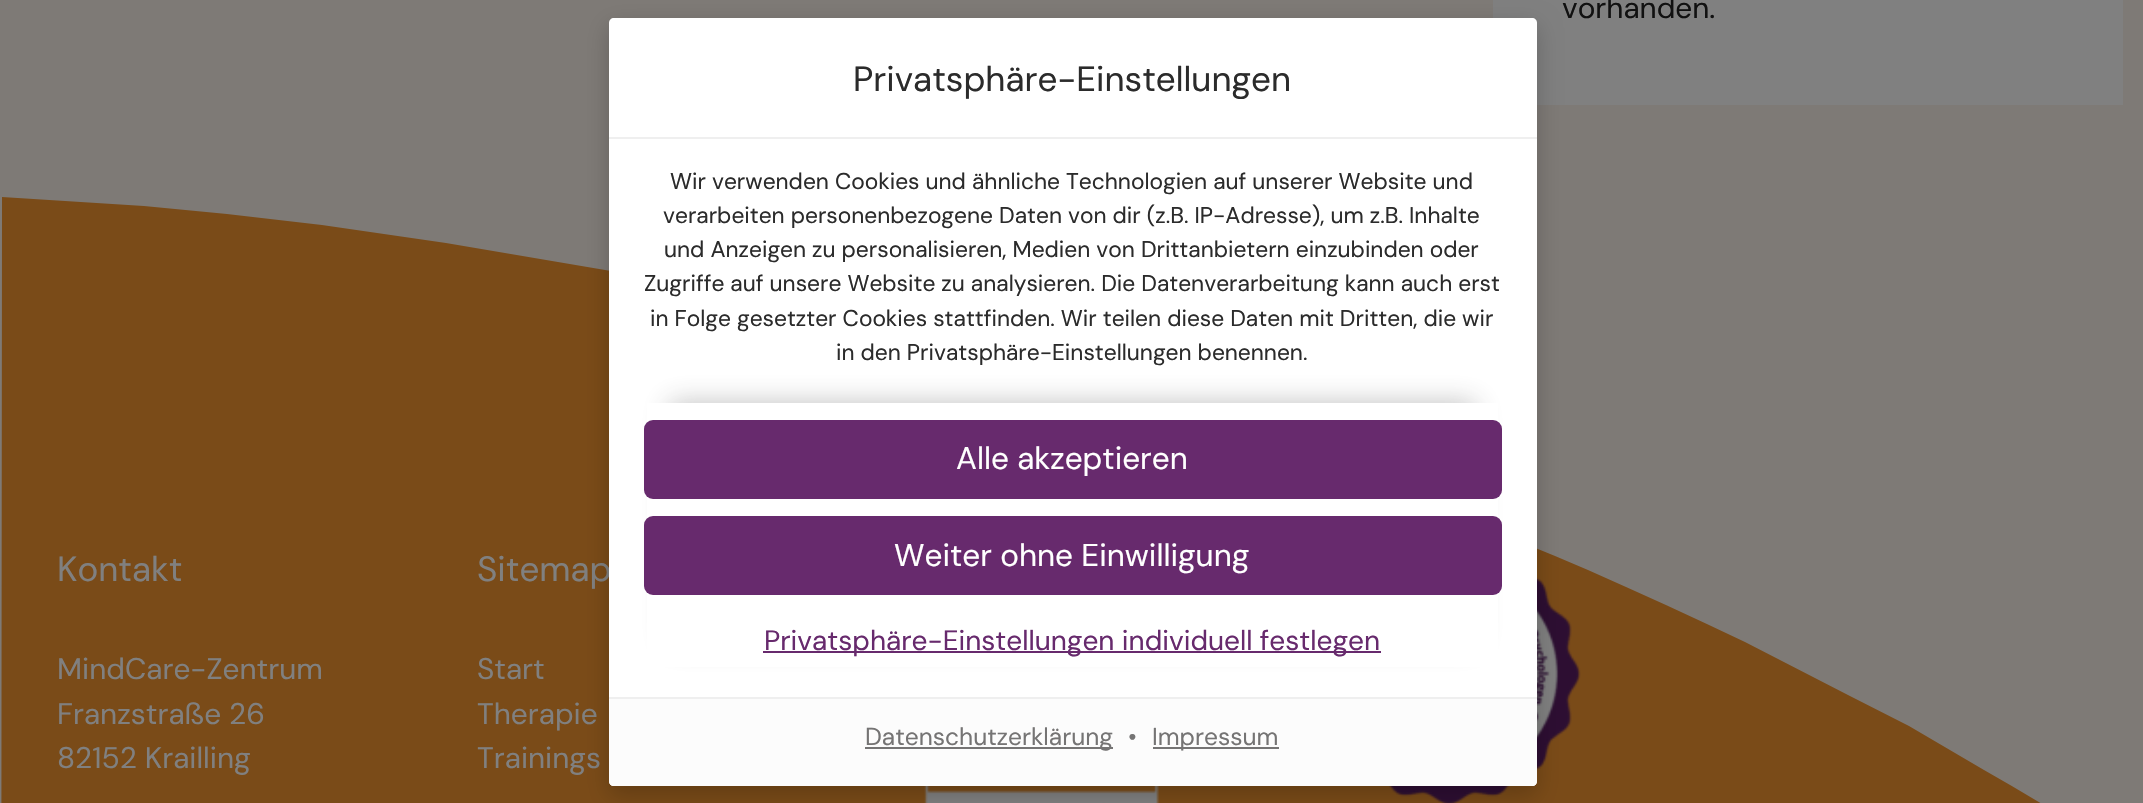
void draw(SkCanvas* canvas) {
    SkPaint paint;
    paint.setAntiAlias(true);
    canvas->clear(0xFF7E7A76);
    paint.setColor(0xFF808080);
    canvas->drawRect(SkRect::MakeXYWH(1493, 0, 630, 105), paint);
    SkFont font1(fontMgr->matchFamilyStyle("DM Sans", SkFontStyle::Normal()), 29.75f);
    font1.setSubpixel(true);
    paint.setColor(0xFF111111);
    canvas->drawString("vorhanden.", 1562, 18, font1, paint);
    paint.setColor(0xFF7A4B18);
    canvas->drawPath(SkPathBuilder().moveTo(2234, 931).lineTo(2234, 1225).lineTo(1, 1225).lineTo(2, 197).lineTo(144, 206).lineTo(227, 214).lineTo(322, 225).lineTo(446, 243).lineTo(611, 271).lineTo(711, 292).lineTo(806, 313).cubicTo(865, 327, 923, 343, 981, 358).cubicTo(1032, 373, 1083, 387, 1134, 403).cubicTo(1199, 423, 1264, 445, 1328, 468).cubicTo(1415, 500, 1502, 533, 1588, 570).cubicTo(1640, 593, 1693, 617, 1745, 642).lineTo(1848, 695).lineTo(1909, 726).lineTo(1984, 770).cubicTo(2026, 794, 2068, 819, 2109, 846).cubicTo(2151, 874, 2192, 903, 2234, 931).close().detach(), paint);
    SkFont font2(fontMgr->matchFamilyStyle("DM Sans", SkFontStyle::Normal()), 35);
    font2.setSubpixel(true);
    paint.setColor(0xFF808080);
    canvas->drawString("Kontakt", 57, 581, font2, paint);
    canvas->drawString("MindCare-Zentrum", 57, 679, font1, paint);
    canvas->drawString("Franzstraße 26", 57, 724, font1, paint);
    canvas->drawString("82152 Krailling", 57, 768, font1, paint);
    canvas->drawString("Sitemap", 477, 581, font2, paint);
    canvas->drawString("Start", 477, 679, font1, paint);
    canvas->drawString("Therapie", 477, 724, font1, paint);
    canvas->drawString("Trainings", 477, 768, font1, paint);
    canvas->drawImageRect(SkImages::DeferredFromEncodedData(SkData::MakeFromFileName("img1.png")), SkRect::MakeXYWH(924, 786, 235, 17), SkSamplingOptions());
    canvas->drawImageRect(SkImages::DeferredFromEncodedData(SkData::MakeFromFileName("img2.png")), SkRect::MakeXYWH(1389, 577, 192, 226), SkSamplingOptions());
    paint.setColor(0x33000000);
    paint.setMaskFilter(SkMaskFilter::MakeBlur(kNormal_SkBlurStyle, 11.5f));
    canvas->drawRoundRect(SkRect::MakeXYWH(609, 26, 928, 769), 5, 5, paint);
    paint.setMaskFilter(nullptr);
    paint.setColor(0xFFFFFFFF);
    canvas->drawPath(SkPathBuilder().moveTo(614, 18).lineTo(1532, 18).cubicTo(1535, 18, 1537, 20, 1537, 23).lineTo(1537, 138).lineTo(609, 138).lineTo(609, 23).cubicTo(609, 20, 611, 18, 614, 18).close().detach(), paint);
    paint.setColor(0xFF2B2B2B);
    canvas->drawString("Privatsphäre-Einstellungen", 853, 91, font2, paint);
    paint.setColor(0xFFFFFFFF);
    canvas->drawPath(SkPathBuilder().moveTo(609, 138).lineTo(1537, 138).lineTo(1537, 781).cubicTo(1537, 784, 1535, 786, 1532, 786).lineTo(614, 786).cubicTo(611, 786, 609, 784, 609, 781).close().detach(), paint);
    paint.setColor(0xFFEFEFEF);
    canvas->drawRect(SkRect::MakeXYWH(609, 137, 928, 2), paint);
    SkFont font3(fontMgr->matchFamilyStyle("DM Sans", SkFontStyle::Normal()), 22.75f);
    font3.setSubpixel(true);
    paint.setColor(0xFF2B2B2B);
    canvas->drawString("Wir verwenden Cookies und ähnliche Technologien auf unserer Website und", 670, 189, font3, paint);
    canvas->drawString("verarbeiten personenbezogene Daten von dir (z.B. IP-Adresse), um z.B. Inhalte", 663, 223, font3, paint);
    canvas->drawString("und Anzeigen zu personalisieren, Medien von Drittanbietern einzubinden oder", 664, 257, font3, paint);
    canvas->drawString("Zugriffe auf unsere Website zu analysieren. Die Datenverarbeitung kann auch erst", 644, 291, font3, paint);
    canvas->drawString("in Folge gesetzter Cookies stattfinden. Wir teilen diese Daten mit Dritten, die wir", 650, 326, font3, paint);
    canvas->drawString("in den Privatsphäre-Einstellungen benennen.", 836, 360, font3, paint);
    paint.setColor(0x4D2B2B2B);
    paint.setMaskFilter(SkMaskFilter::MakeBlur(kNormal_SkBlurStyle, 13));
    canvas->drawRect(SkRect::MakeXYWH(670, 403, 805, 241), paint);
    paint.setMaskFilter(nullptr);
    paint.setColor(0xFFFFFFFF);
    canvas->drawRect(SkRect::MakeXYWH(647, 403, 851, 264), paint);
    paint.setColor(0xFF672A6D);
    canvas->drawRoundRect(SkRect::MakeXYWH(644, 420, 858, 79), 9, 9, paint);
    SkFont font4(fontMgr->matchFamilyStyle("DM Sans", SkFontStyle::Normal()), 31.5f);
    font4.setSubpixel(true);
    paint.setColor(0xFFFFFFFF);
    canvas->drawString("Alle akzeptieren", 956, 469, font4, paint);
    paint.setColor(0xFF672A6D);
    canvas->drawRoundRect(SkRect::MakeXYWH(644, 516, 858, 79), 9, 9, paint);
    paint.setColor(0xFFFFFFFF);
    canvas->drawString("Weiter ohne Einwilligung", 894, 566, font4, paint);
    paint.setColor(0xFF672A6D);
    canvas->drawRect(SkRect::MakeXYWH(763, 651, 618, 2), paint);
    SkFont font5(fontMgr->matchFamilyStyle("DM Sans", SkFontStyle::Normal()), 28);
    font5.setSubpixel(true);
    canvas->drawString("Privatsphäre-Einstellungen individuell festlegen", 764, 650, font5, paint);
    paint.setColor(0xFFFCFCFC);
    canvas->drawPath(SkPathBuilder().moveTo(609, 697).lineTo(1537, 697).lineTo(1537, 781).cubicTo(1537, 784, 1535, 786, 1532, 786).lineTo(614, 786).cubicTo(611, 786, 609, 784, 609, 781).close().detach(), paint);
    paint.setColor(0xFFEFEFEF);
    canvas->drawRect(SkRect::MakeXYWH(609, 697, 928, 2), paint);
    paint.setColor(0xFF757474);
    canvas->drawRect(SkRect::MakeXYWH(865, 747, 248, 2), paint);
    SkFont font6(fontMgr->matchFamilyStyle("DM Sans", SkFontStyle::Normal()), 24.5f);
    font6.setSubpixel(true);
    canvas->drawString("Datenschutzerklärung", 865, 745, font6, paint);
    canvas->drawString("•", 1128, 745, font6, paint);
    canvas->drawRect(SkRect::MakeXYWH(1153, 747, 126, 2), paint);
    canvas->drawString("Impressum", 1152, 745, font6, paint);
}
